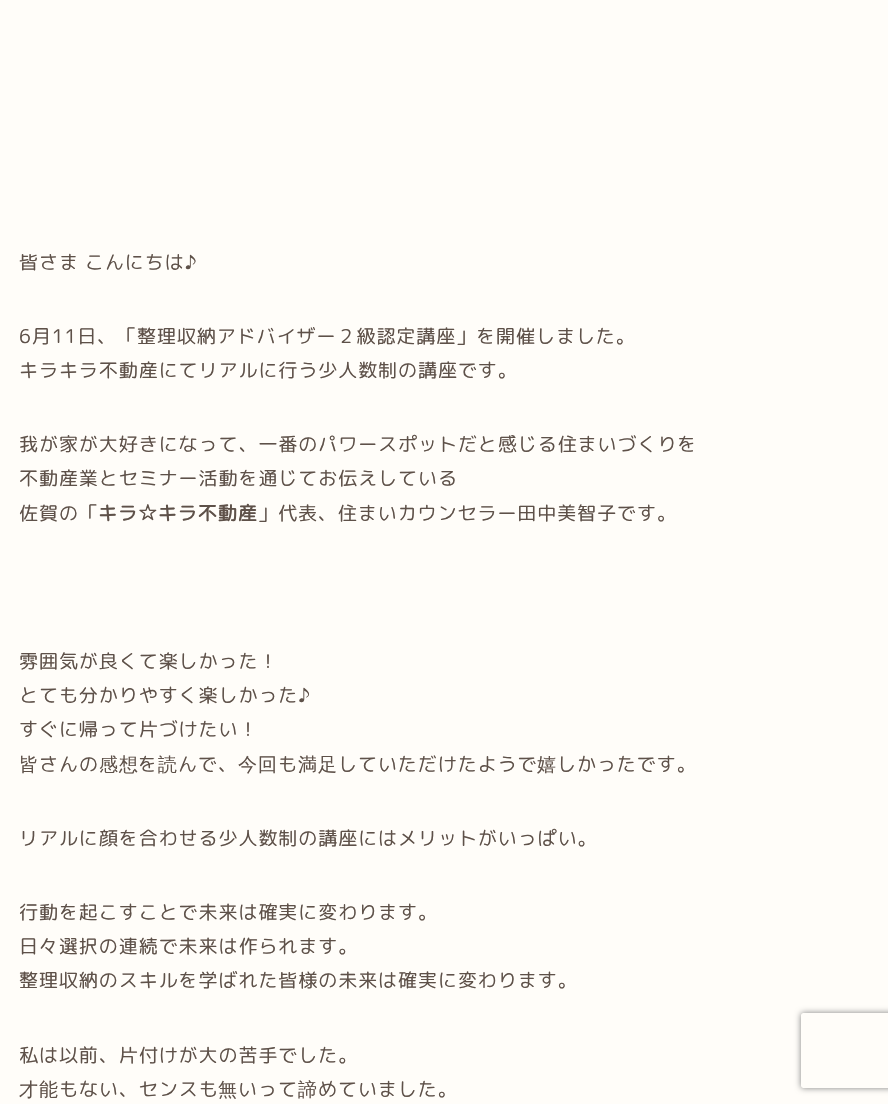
void draw(SkCanvas* canvas) {
    SkPaint paint;
    paint.setAntiAlias(true);
    auto spacedText = [&](const char* s, float x, float y, const SkFont& font, const SkPaint& ink, float letter, float word) {
        std::vector<SkGlyphID> glyphs(font.countText(s, strlen(s), SkTextEncoding::kUTF8));
        std::vector<float> xs(glyphs.size());
        font.textToGlyphs(s, strlen(s), SkTextEncoding::kUTF8, glyphs);
        font.getXPos(glyphs, xs, x);
        float extra = 0;
        for (size_t i = 0; i < glyphs.size(); i++) {
            xs[i] += extra;
            extra += letter + word * (glyphs[i] == font.unicharToGlyph(' '));
        }
        canvas->drawTextBlob(SkTextBlob::MakeFromPosHGlyphs(glyphs, xs, y, font), 0, 0, ink);
    };
    canvas->clear(0xFFFFFDF9);
    SkFont font1(fontMgr->matchFamilyStyle("Rounded Mplus 1c", SkFontStyle::Normal()), 19);
    font1.setSubpixel(true);
    paint.setColor(0xFF5E5149);
    spacedText("皆さま こんにちは♪", 19, 269, font1, paint, 0.95f, 0);
    spacedText("6月11日、「整理収納アドバイザー２級認定講座」を開催しました。", 19, 343, font1, paint, 0.95f, 0);
    spacedText("キラキラ不動産にてリアルに行う少人数制の講座です。", 19, 377, font1, paint, 0.95f, 0);
    spacedText("我が家が大好きになって、一番のパワースポットだと感じる住まいづくりを", 19, 451, font1, paint, 0.95f, 0);
    spacedText("不動産業とセミナー活動を通じてお伝えしている", 19, 485, font1, paint, 0.95f, 0);
    spacedText("佐賀の「", 19, 520, font1, paint, 0.95f, 0);
    SkFont font2(fontMgr->matchFamilyStyle("Rounded Mplus 1c", SkFontStyle::Bold()), 19);
    font2.setSubpixel(true);
    spacedText("キラ☆キラ不動産", 98, 520, font2, paint, 0.95f, 0);
    spacedText("」代表、住まいカウンセラー田中美智子です。", 258, 520, font1, paint, 0.95f, 0);
    spacedText("雰囲気が良くて楽しかった！", 19, 668, font1, paint, 0.95f, 0);
    spacedText("とても分かりやすく楽しかった♪", 19, 702, font1, paint, 0.95f, 0);
    spacedText("すぐに帰って片づけたい！", 19, 736, font1, paint, 0.95f, 0);
    SkFont font3(fontMgr->matchFamilyStyle("WenQuanYi Zen Hei", SkFontStyle(500, SkFontStyle::kNormal_Width, SkFontStyle::kUpright_Slant)), 19);
    font3.setSubpixel(true);
    spacedText("皆", 19, 771, font3, paint, 0.95f, 0);
    spacedText("さんの", 39, 771, font1, paint, 0.95f, 0);
    spacedText("感想", 99, 771, font3, paint, 0.95f, 0);
    spacedText("を", 138, 771, font1, paint, 0.95f, 0);
    spacedText("読", 158, 771, font3, paint, 0.95f, 0);
    spacedText("んで、", 178, 771, font1, paint, 0.95f, 0);
    spacedText("今回", 238, 771, font3, paint, 0.95f, 0);
    spacedText("も", 278, 771, font1, paint, 0.95f, 0);
    spacedText("満足", 298, 771, font3, paint, 0.95f, 0);
    spacedText("していただけたようで", 338, 771, font1, paint, 0.95f, 0);
    spacedText("嬉", 537, 771, font3, paint, 0.95f, 0);
    spacedText("しかったです。", 557, 771, font1, paint, 0.95f, 0);
    spacedText("リアルに顔を合わせる少人数制の講座にはメリットがいっぱい。", 19, 845, font1, paint, 0.95f, 0);
    spacedText("行動を起こすことで未来は確実に変わります。", 19, 919, font1, paint, 0.95f, 0);
    spacedText("日々選択の連続で未来は作られます。", 19, 953, font1, paint, 0.95f, 0);
    spacedText("整理収納のスキルを学ばれた皆様の未来は確実に変わります。", 19, 987, font1, paint, 0.95f, 0);
    spacedText("私は以前、片付けが大の苦手でした。", 19, 1062, font1, paint, 0.95f, 0);
    spacedText("才能", 19, 1096, font3, paint, 0.95f, 0);
    spacedText("もない、センスも", 59, 1096, font1, paint, 0.95f, 0);
    spacedText("無", 218, 1096, font3, paint, 0.95f, 0);
    spacedText("いって", 238, 1096, font1, paint, 0.95f, 0);
    spacedText("諦", 298, 1096, font3, paint, 0.95f, 0);
    spacedText("めていました。", 318, 1096, font1, paint, 0.95f, 0);
    canvas->save();
    canvas->clipPath(SkPathBuilder(SkPathFillType::kEvenOdd).moveTo(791, 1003).lineTo(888, 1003).lineTo(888, 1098).lineTo(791, 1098).close().moveTo(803.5f, 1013).lineTo(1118.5f, 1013).cubicTo(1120, 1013, 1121, 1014, 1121, 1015.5f).lineTo(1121, 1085.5f).cubicTo(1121, 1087, 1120, 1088, 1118.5f, 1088).lineTo(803.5f, 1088).cubicTo(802, 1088, 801, 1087, 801, 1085.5f).lineTo(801, 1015.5f).cubicTo(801, 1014, 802, 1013, 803.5f, 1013).close().detach(), true);
    paint.setColor(0xFF808080);
    paint.setMaskFilter(SkMaskFilter::MakeBlur(kNormal_SkBlurStyle, 3));
    canvas->drawRoundRect(SkRect::MakeXYWH(801, 1013, 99, 75), 2.5f, 2.5f, paint);
    paint.setMaskFilter(nullptr);
    canvas->restore();
}
